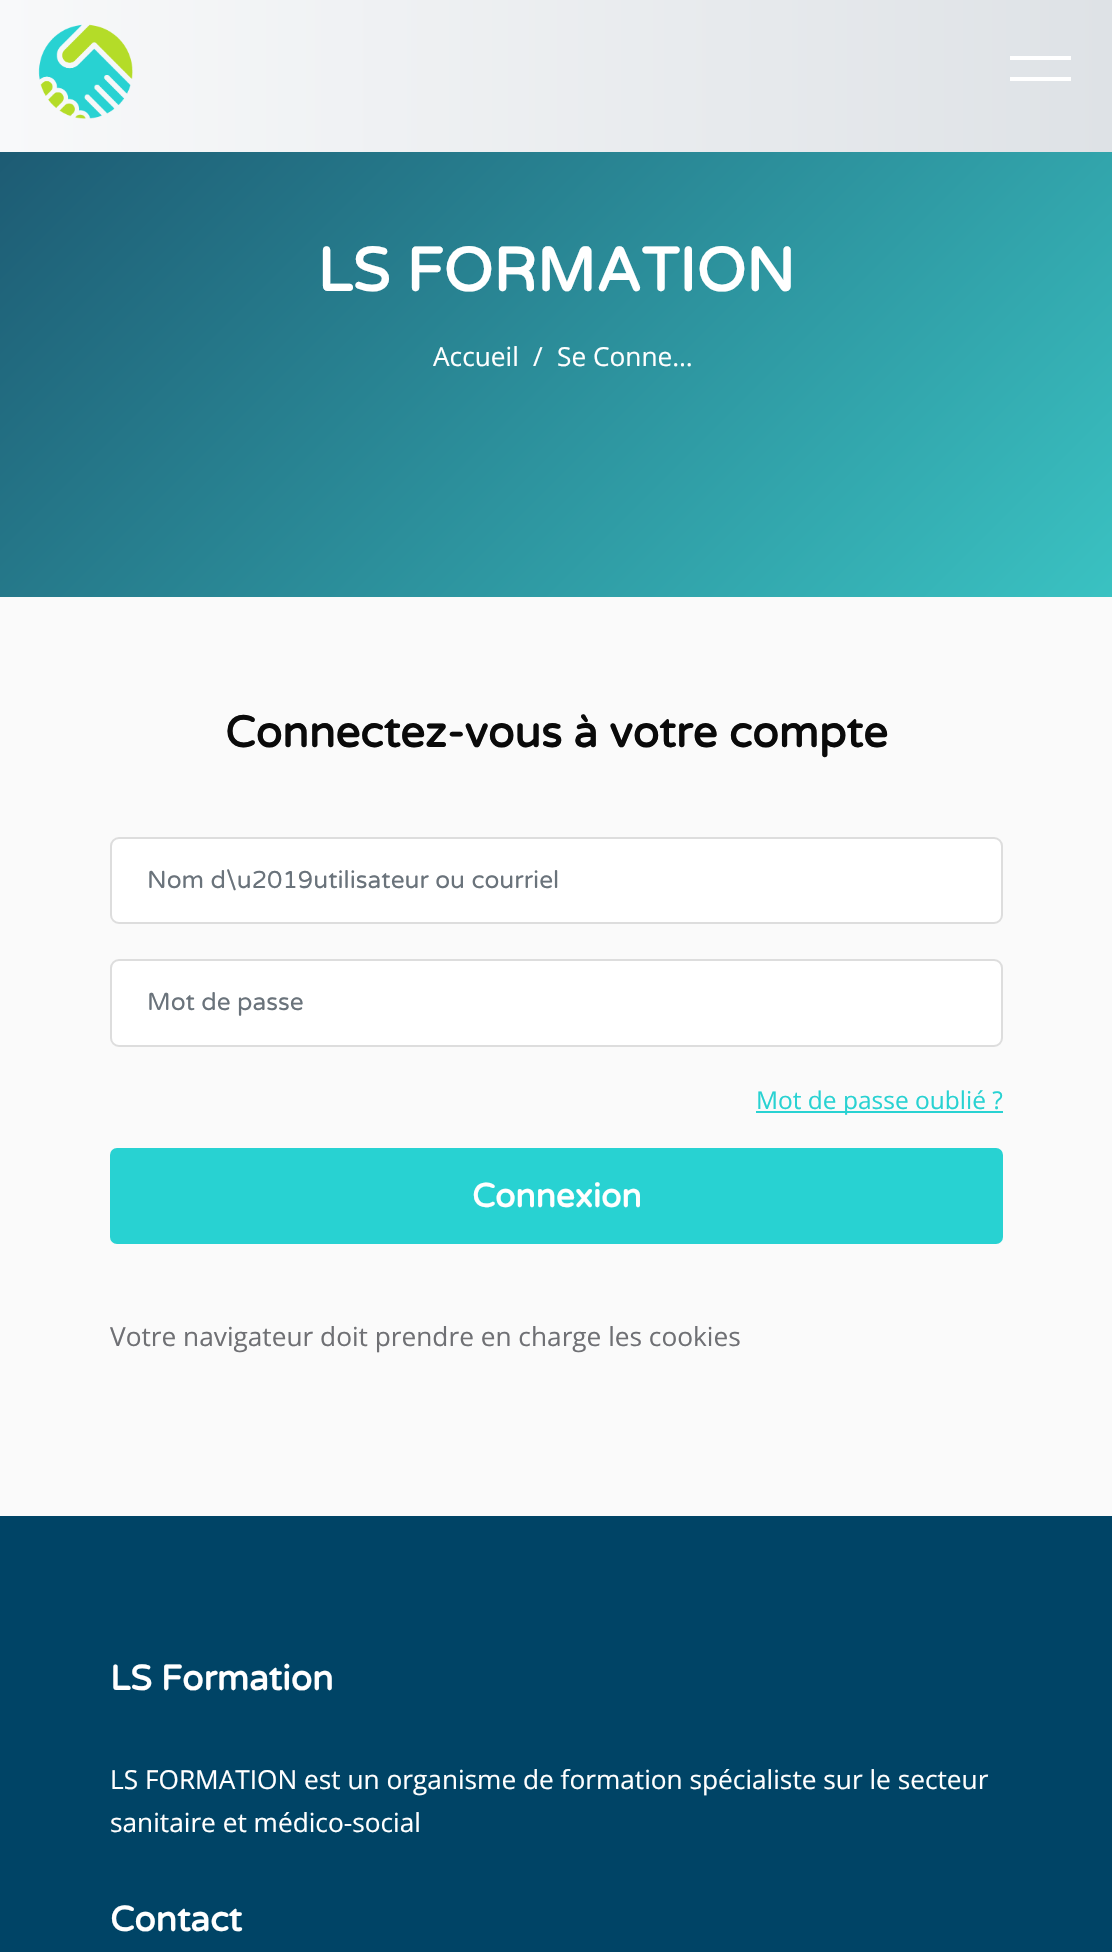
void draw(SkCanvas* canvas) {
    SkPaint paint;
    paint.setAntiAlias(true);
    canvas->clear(0xFFFFFFFF);
    {
        const SkColor colors[] = {0xFFF8F9FA, 0xFFDEE2E6};
        const float stops[] = {0, 1};
        const SkPoint ends[] = {{0, 69}, {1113, 69}};
        paint.setShader(SkGradientShader::MakeLinear(ends, colors, stops, 2, SkTileMode::kClamp));
        paint.setAlpha(255);
    }
    canvas->drawRect(SkRect::MakeXYWH(0, 0, 1112, 152), paint);
    canvas->drawImageRect(SkImages::DeferredFromEncodedData(SkData::MakeFromFileName("img1.png")), SkRect::MakeXYWH(38, 24, 95, 95), SkSamplingOptions());
    paint.setShader(nullptr);
    paint.setColor(0xFFFFFFFF);
    canvas->drawRect(SkRect::MakeXYWH(1010, 56, 61, 4), paint);
    canvas->drawRect(SkRect::MakeXYWH(1010, 77, 61, 4), paint);
    {
        const SkColor colors[] = {0xFF3AC2C2, 0xFF1A506B};
        const float stops[] = {0, 1};
        const SkPoint ends[] = {{988, 722}, {125, -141}};
        paint.setShader(SkGradientShader::MakeLinear(ends, colors, stops, 2, SkTileMode::kClamp));
        paint.setAlpha(255);
    }
    canvas->drawRect(SkRect::MakeXYWH(0, 152, 1112, 445), paint);
    SkFont font1(fontMgr->matchFamilyStyle("Varela Round", SkFontStyle::Bold()), 61.25f);
    font1.setSubpixel(true);
    paint.setShader(nullptr);
    paint.setColor(0xFFFFFFFF);
    canvas->drawString("LS FORMATION", 317, 291, font1, paint);
    SkFont font2(fontMgr->matchFamilyStyle("Open Sans", SkFontStyle::Normal()), 26.25f);
    font2.setSubpixel(true);
    canvas->drawString("Accueil", 433, 366, font2, paint);
    canvas->drawString("/", 533, 366, font2, paint);
    canvas->drawString("Se Conne…", 557, 366, font2, paint);
    paint.setColor(0xFFFAFAFA);
    canvas->drawRect(SkRect::MakeXYWH(0, 597, 1112, 919), paint);
    SkFont font3(fontMgr->matchFamilyStyle("Varela Round", SkFontStyle::Bold()), 43.75f);
    font3.setSubpixel(true);
    paint.setColor(0xFF0A0A0A);
    canvas->drawString("Connectez-vous à votre compte", 225, 747, font3, paint);
    paint.setColor(0xFFFFFFFF);
    canvas->drawRoundRect(SkRect::MakeXYWH(111, 838, 891, 85), 8, 8, paint);
    paint.setStyle(SkPaint::kStroke_Style);
    paint.setStrokeWidth(2);
    paint.setColor(0xFFDDDDDD);
    canvas->drawRoundRect(SkRect::MakeXYWH(111, 838, 891, 85), 8, 8, paint);
    SkFont font4(fontMgr->matchFamilyStyle("Varela Round", SkFontStyle::Normal()), 24.5f);
    font4.setSubpixel(true);
    paint.setStyle(SkPaint::kFill_Style);
    paint.setColor(0xFF6A737B);
    canvas->drawString("Nom d\\u2019utilisateur ou courriel", 147, 888, font4, paint);
    paint.setColor(0xFFFFFFFF);
    canvas->drawRoundRect(SkRect::MakeXYWH(111, 960, 891, 86), 8, 8, paint);
    paint.setStyle(SkPaint::kStroke_Style);
    paint.setColor(0xFFDDDDDD);
    canvas->drawRoundRect(SkRect::MakeXYWH(111, 960, 891, 86), 8, 8, paint);
    paint.setStyle(SkPaint::kFill_Style);
    paint.setColor(0xFF6A737B);
    canvas->drawString("Mot de passe", 147, 1010, font4, paint);
    paint.setColor(0xFF28D2D2);
    canvas->drawRect(SkRect::MakeXYWH(756, 1111, 247, 2), paint);
    SkFont font5(fontMgr->matchFamilyStyle("Open Sans", SkFontStyle::Normal()), 24.5f);
    font5.setSubpixel(true);
    canvas->drawString("Mot de passe oublié ?", 756, 1109, font5, paint);
    canvas->drawRoundRect(SkRect::MakeXYWH(111, 1149, 891, 94), 6, 6, paint);
    paint.setStyle(SkPaint::kStroke_Style);
    canvas->drawRoundRect(SkRect::MakeXYWH(111, 1149, 891, 94), 6, 6, paint);
    SkFont font6(fontMgr->matchFamilyStyle("Varela Round", SkFontStyle::Bold()), 33.25f);
    font6.setSubpixel(true);
    paint.setStyle(SkPaint::kFill_Style);
    paint.setColor(0xFFFFFFFF);
    canvas->drawString("Connexion", 472, 1207, font6, paint);
    paint.setColor(0xFF6F7074);
    canvas->drawString("Votre navigateur doit prendre en charge les cookies", 110, 1346, font2, paint);
    paint.setColor(0xFF004466);
    canvas->drawRect(SkRect::MakeXYWH(0, 1516, 1112, 436), paint);
    SkFont font7(fontMgr->matchFamilyStyle("Varela Round", SkFontStyle::Bold()), 35);
    font7.setSubpixel(true);
    paint.setColor(0xFFFFFFFF);
    canvas->drawString("LS Formation", 110, 1690, font7, paint);
    canvas->drawString("LS FORMATION est un organisme de formation spécialiste sur le secteur", 110, 1789, font2, paint);
    canvas->drawString("sanitaire et médico-social", 110, 1832, font2, paint);
    canvas->drawString("Contact", 110, 1931, font7, paint);
}
